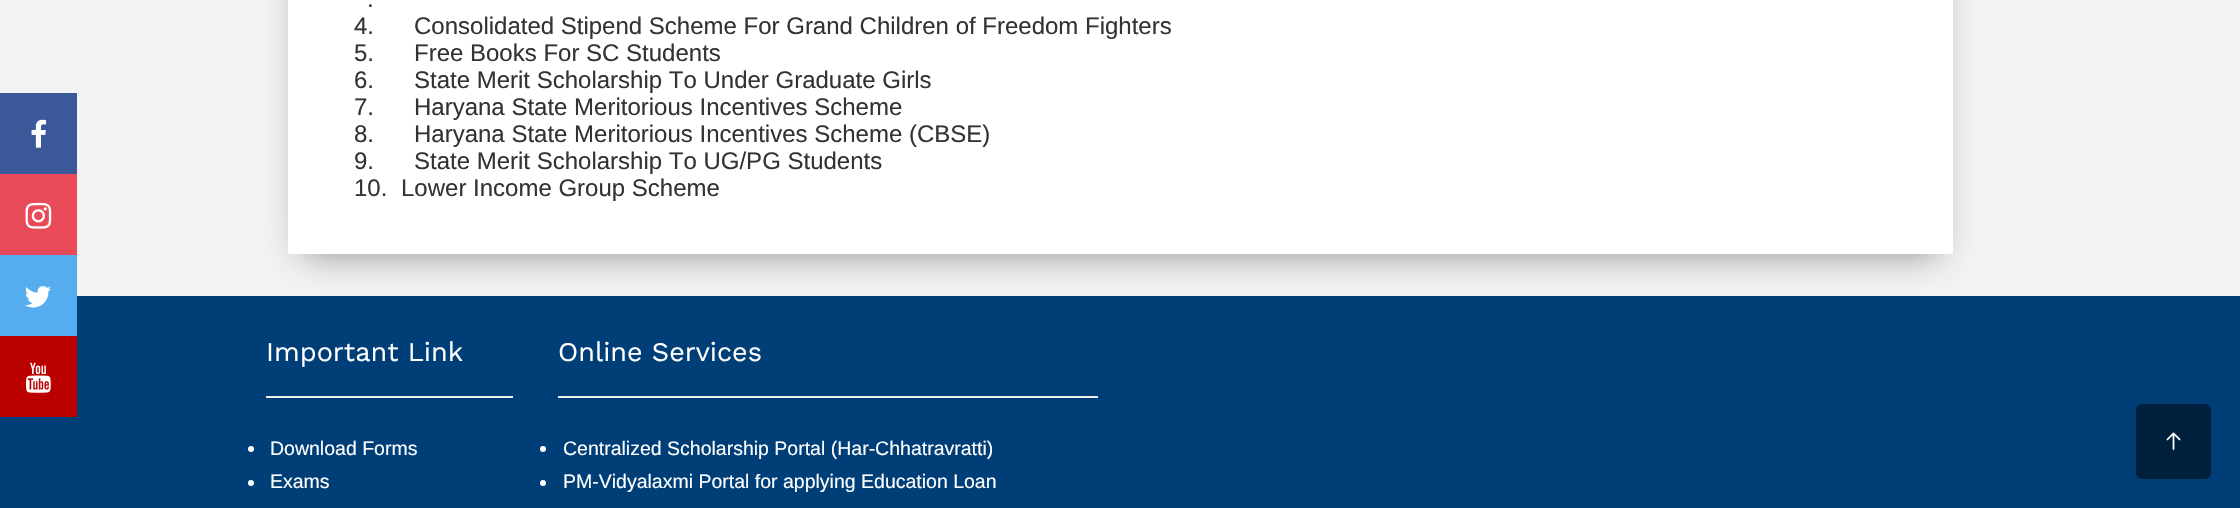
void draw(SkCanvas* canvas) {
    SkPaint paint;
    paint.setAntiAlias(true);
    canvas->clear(0xFFF3F3F3);
    paint.setColor(0xFF3B5998);
    canvas->drawRect(SkRect::MakeXYWH(0, 93, 77, 81), paint);
    canvas->drawImageRect(SkImages::DeferredFromEncodedData(SkData::MakeFromFileName("img1.png")), SkRect::MakeXYWH(31, 119, 16, 29), SkSamplingOptions());
    paint.setColor(0xFFE84A5A);
    canvas->drawRect(SkRect::MakeXYWH(0, 174, 77, 81), paint);
    canvas->drawImageRect(SkImages::DeferredFromEncodedData(SkData::MakeFromFileName("img2.png")), SkRect::MakeXYWH(25, 202, 27, 27), SkSamplingOptions());
    paint.setColor(0xFF003E78);
    canvas->drawRect(SkRect::MakeXYWH(0, 296, 2240, 212), paint);
    paint.setColor(0xFF55ACEE);
    canvas->drawRect(SkRect::MakeXYWH(0, 255, 77, 81), paint);
    canvas->drawImageRect(SkImages::DeferredFromEncodedData(SkData::MakeFromFileName("img3.png")), SkRect::MakeXYWH(25, 286, 26, 22), SkSamplingOptions());
    paint.setColor(0xFFBB0000);
    canvas->drawRect(SkRect::MakeXYWH(0, 336, 77, 81), paint);
    canvas->drawImageRect(SkImages::DeferredFromEncodedData(SkData::MakeFromFileName("img4.png")), SkRect::MakeXYWH(25, 362, 26, 31), SkSamplingOptions());
    paint.setColor(0x6E000000);
    paint.setMaskFilter(SkMaskFilter::MakeBlur(kNormal_SkBlurStyle, 17));
    canvas->drawRect(SkRect::MakeXYWH(303, -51, 1635, 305), paint);
    paint.setMaskFilter(nullptr);
    paint.setColor(0xFFFFFFFF);
    canvas->drawRect(SkRect::MakeXYWH(288, 0, 1665, 254), paint);
    SkFont font1(fontMgr->matchFamilyStyle("Liberation Sans", SkFontStyle::Normal()), 24);
    font1.setSubpixel(true);
    paint.setColor(0xFF333333);
    canvas->drawString(".", 367, 7, font1, paint);
    canvas->drawString("4.", 354, 34, font1, paint);
    canvas->drawString("Consolidated Stipend Scheme For Grand Children of Freedom Fighters", 414, 34, font1, paint);
    canvas->drawString("5.", 354, 61, font1, paint);
    canvas->drawString("Free Books For SC Students", 414, 61, font1, paint);
    canvas->drawString("6.", 354, 88, font1, paint);
    canvas->drawString("State Merit Scholarship To Under Graduate Girls", 414, 88, font1, paint);
    canvas->drawString("7.", 354, 115, font1, paint);
    canvas->drawString("Haryana State Meritorious Incentives Scheme", 414, 115, font1, paint);
    canvas->drawString("8.", 354, 142, font1, paint);
    canvas->drawString("Haryana State Meritorious Incentives Scheme (CBSE)", 414, 142, font1, paint);
    canvas->drawString("9.", 354, 169, font1, paint);
    canvas->drawString("State Merit Scholarship To UG/PG Students", 414, 169, font1, paint);
    canvas->drawString("10.", 354, 196, font1, paint);
    canvas->drawString("Lower Income Group Scheme", 401, 196, font1, paint);
    SkFont font2(fontMgr->matchFamilyStyle("Work Sans", SkFontStyle::Normal()), 27);
    font2.setSubpixel(true);
    paint.setColor(0xFFFFFFFF);
    canvas->drawString("Important Link", 266, 361, font2, paint);
    paint.setColor(0xFFEEEEEE);
    canvas->drawRect(SkRect::MakeXYWH(266, 396, 247, 2), paint);
    paint.setColor(0xFFFFFFFF);
    canvas->drawCircle(251, 449, 3, paint);
    SkFont font3(fontMgr->matchFamilyStyle("Liberation Sans", SkFontStyle::Normal()), 19.5f);
    font3.setSubpixel(true);
    canvas->drawString("Download Forms", 270, 455, font3, paint);
    canvas->drawCircle(251, 483, 3, paint);
    canvas->drawString("Exams", 270, 488, font3, paint);
    canvas->drawString("Online Services", 558, 361, font2, paint);
    paint.setColor(0xFFEEEEEE);
    canvas->drawRect(SkRect::MakeXYWH(558, 396, 540, 2), paint);
    paint.setColor(0xFFFFFFFF);
    canvas->drawCircle(543, 449, 3, paint);
    canvas->drawString("Centralized Scholarship Portal (Har-Chhatravratti)", 563, 455, font3, paint);
    canvas->drawCircle(543, 483, 3, paint);
    canvas->drawString("PM-Vidyalaxmi Portal for applying Education Loan", 563, 488, font3, paint);
    paint.setColor(0xFF001F3C);
    canvas->drawRoundRect(SkRect::MakeXYWH(2136, 404, 75, 75), 6, 6, paint);
    canvas->drawImageRect(SkImages::DeferredFromEncodedData(SkData::MakeFromFileName("img5.png")), SkRect::MakeXYWH(2166, 432, 15, 18), SkSamplingOptions());
}
